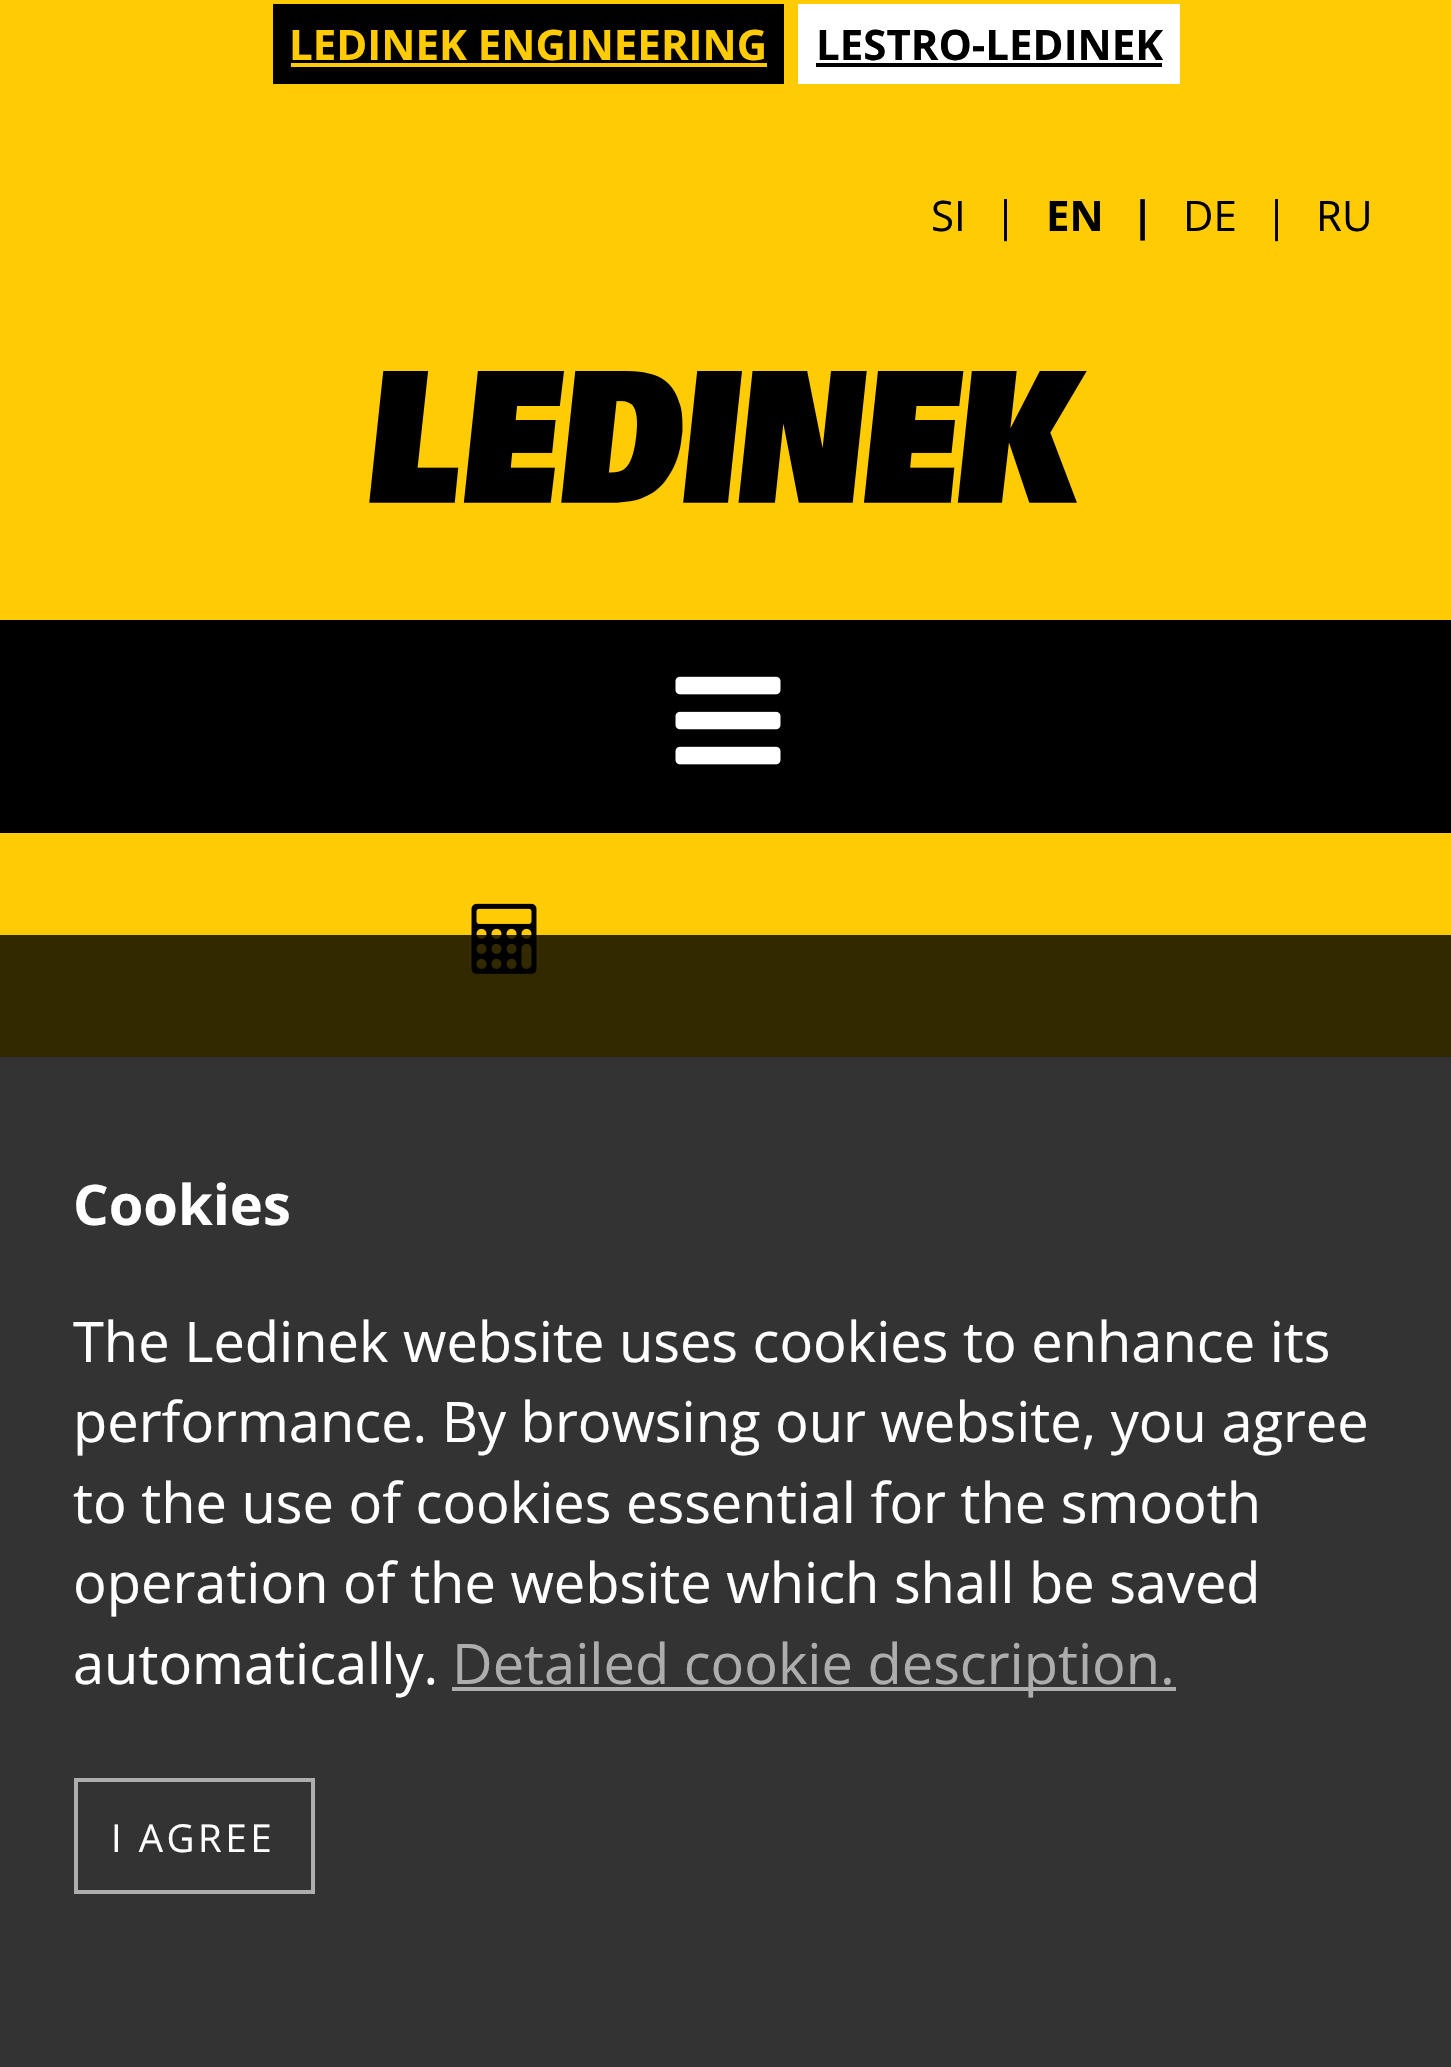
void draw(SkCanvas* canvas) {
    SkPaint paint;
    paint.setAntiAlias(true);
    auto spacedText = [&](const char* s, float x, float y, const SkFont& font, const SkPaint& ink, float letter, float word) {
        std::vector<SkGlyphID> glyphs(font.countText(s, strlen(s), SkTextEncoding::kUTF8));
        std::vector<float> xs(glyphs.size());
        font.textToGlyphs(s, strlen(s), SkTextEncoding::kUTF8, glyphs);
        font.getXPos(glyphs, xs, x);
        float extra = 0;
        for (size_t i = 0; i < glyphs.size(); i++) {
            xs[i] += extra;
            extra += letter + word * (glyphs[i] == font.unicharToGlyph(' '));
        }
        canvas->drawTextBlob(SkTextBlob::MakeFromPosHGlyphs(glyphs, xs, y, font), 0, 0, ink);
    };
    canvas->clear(0xFFFFFFFF);
    paint.setColor(0xFFFFCB05);
    canvas->drawRect(SkRect::MakeXYWH(0, 0, 1451, 620), paint);
    paint.setColor(0xFF000000);
    canvas->drawRect(SkRect::MakeXYWH(273, 4, 511, 80), paint);
    SkFont font1(fontMgr->matchFamilyStyle("Open Sans", SkFontStyle::Bold()), 42);
    font1.setSubpixel(true);
    paint.setColor(0xFFFFCB05);
    canvas->drawString("LEDINEK ENGINEERING", 289, 60, font1, paint);
    canvas->drawRect(SkRect::MakeXYWH(291, 63, 476, 4), paint);
    paint.setColor(0xFFFFFFFF);
    canvas->drawRect(SkRect::MakeXYWH(798, 4, 382, 80), paint);
    paint.setColor(0xFF000000);
    canvas->drawString("LESTRO-LEDINEK", 816, 60, font1, paint);
    canvas->drawRect(SkRect::MakeXYWH(816, 63, 346, 4), paint);
    SkFont font2(fontMgr->matchFamilyStyle("Open Sans", SkFontStyle::Normal()), 42);
    font2.setSubpixel(true);
    canvas->drawString("SI", 931, 231, font2, paint);
    canvas->drawString("|", 994, 231, font2, paint);
    canvas->drawString("EN", 1046, 231, font1, paint);
    canvas->drawString("|", 1131, 231, font1, paint);
    canvas->drawString("DE", 1183, 231, font2, paint);
    canvas->drawString("|", 1265, 231, font2, paint);
    canvas->drawString("RU", 1316, 231, font2, paint);
    canvas->drawImageRect(SkImages::DeferredFromEncodedData(SkData::MakeFromFileName("img1.png")), SkRect::MakeXYWH(369, 371, 718, 132), SkSamplingOptions());
    canvas->drawRect(SkRect::MakeXYWH(0, 620, 1451, 213), paint);
    canvas->drawImageRect(SkImages::DeferredFromEncodedData(SkData::MakeFromFileName("img2.png")), SkRect::MakeXYWH(675, 676, 106, 89), SkSamplingOptions());
    paint.setColor(0xFFFFCB05);
    canvas->drawRect(SkRect::MakeXYWH(0, 833, 1451, 224), paint);
    canvas->drawImageRect(SkImages::DeferredFromEncodedData(SkData::MakeFromFileName("img3.png")), SkRect::MakeXYWH(471, 903, 66, 71), SkSamplingOptions());
    paint.setColor(0xCC000000);
    canvas->drawRect(SkRect::MakeXYWH(0, 935, 1451, 1132), paint);
    SkFont font3(fontMgr->matchFamilyStyle("Open Sans", SkFontStyle::Bold()), 56);
    font3.setSubpixel(true);
    paint.setColor(0xFFFFFFFF);
    canvas->drawString("Cookies", 73, 1225, font3, paint);
    SkFont font4(fontMgr->matchFamilyStyle("Open Sans", SkFontStyle::Normal()), 56);
    font4.setSubpixel(true);
    canvas->drawString("The Ledinek website uses cookies to enhance its", 73, 1362, font4, paint);
    canvas->drawString("performance. By browsing our website, you agree", 73, 1442, font4, paint);
    canvas->drawString("to the use of cookies essential for the smooth", 73, 1523, font4, paint);
    canvas->drawString("operation of the website which shall be saved", 73, 1603, font4, paint);
    canvas->drawString("automatically.", 73, 1684, font4, paint);
    paint.setColor(0xFFADADAD);
    canvas->drawRect(SkRect::MakeXYWH(452, 1687, 724, 4), paint);
    canvas->drawString("Detailed cookie description.", 452, 1684, font4, paint);
    paint.setStyle(SkPaint::kStroke_Style);
    paint.setStrokeWidth(4);
    paint.setColor(0x99FFFFFF);
    canvas->drawRect(SkRect::MakeXYWH(76, 1780, 237, 112), paint);
    SkFont font5(fontMgr->matchFamilyStyle("Open Sans", SkFontStyle::Normal()), 38.5f);
    font5.setSubpixel(true);
    paint.setStyle(SkPaint::kFill_Style);
    paint.setColor(0xFFFFFFFF);
    spacedText("I AGREE", 111, 1852, font5, paint, 3.5f, 0);
}
